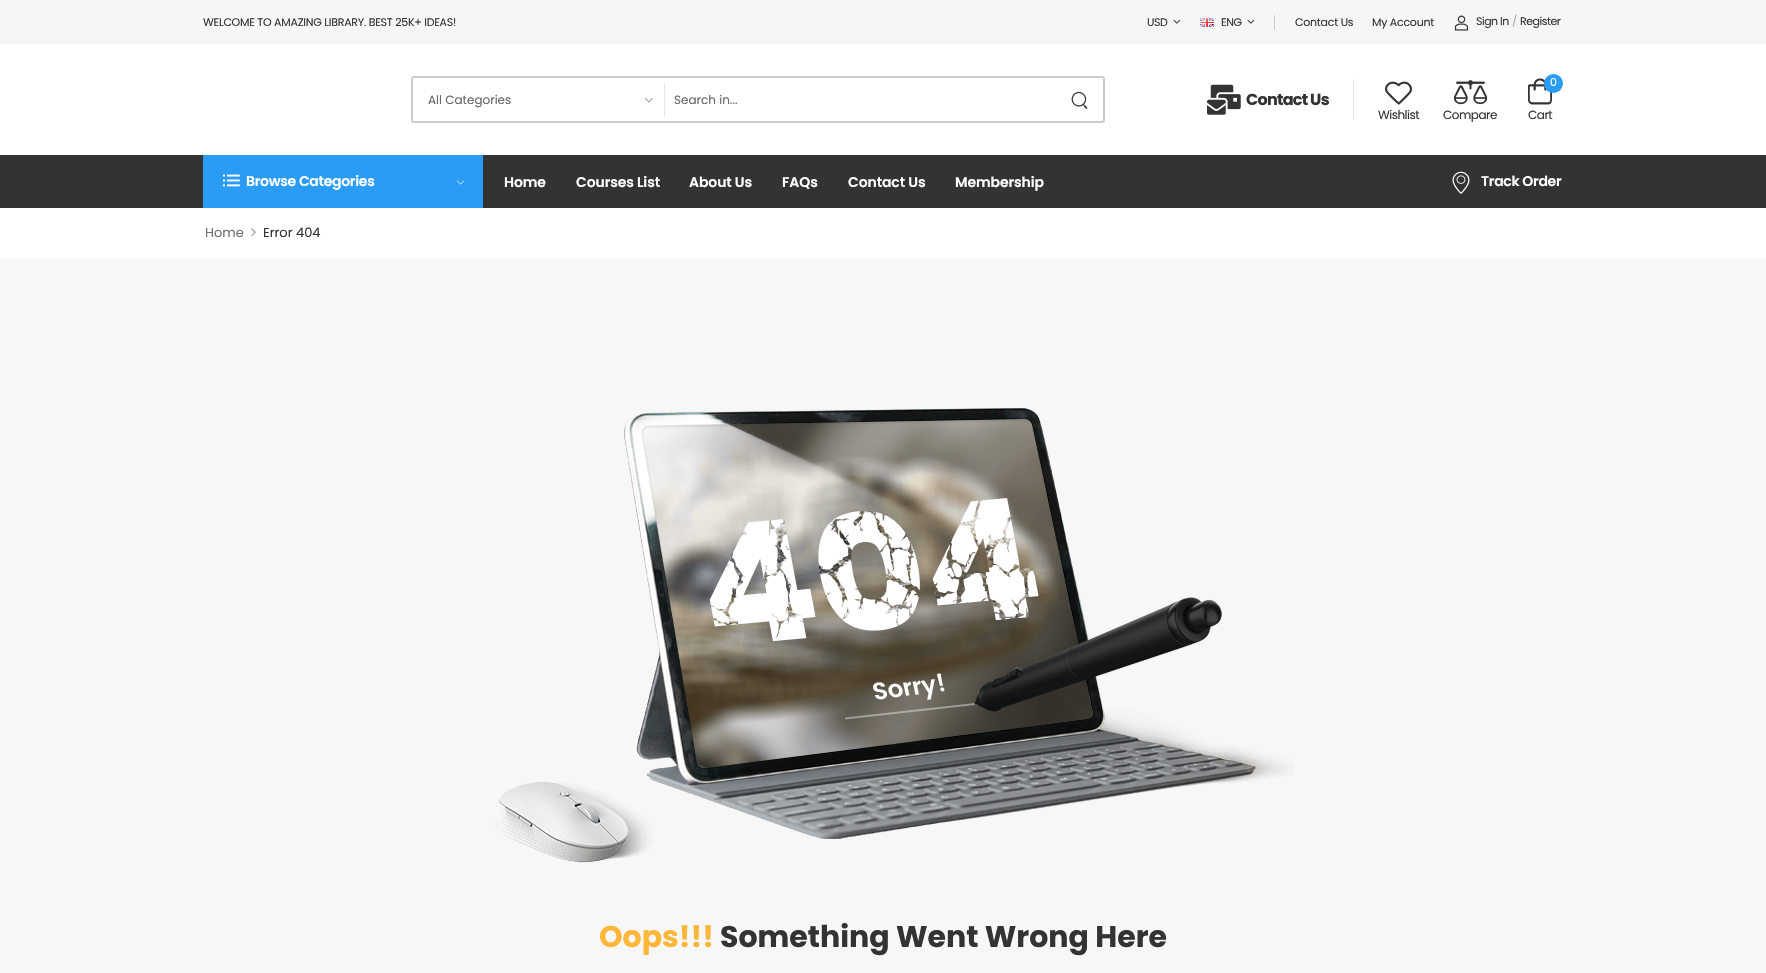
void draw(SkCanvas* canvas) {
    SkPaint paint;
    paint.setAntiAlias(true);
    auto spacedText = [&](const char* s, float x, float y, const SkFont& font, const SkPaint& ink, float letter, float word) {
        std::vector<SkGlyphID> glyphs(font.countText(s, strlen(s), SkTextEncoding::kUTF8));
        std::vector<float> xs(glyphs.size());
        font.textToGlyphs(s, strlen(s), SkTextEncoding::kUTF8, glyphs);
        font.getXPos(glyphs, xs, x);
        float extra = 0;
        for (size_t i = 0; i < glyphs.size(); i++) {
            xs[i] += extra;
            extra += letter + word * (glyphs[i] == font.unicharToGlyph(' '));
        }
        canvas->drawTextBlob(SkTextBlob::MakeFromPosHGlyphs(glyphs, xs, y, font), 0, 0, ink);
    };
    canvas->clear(0xFFFFFFFF);
    paint.setColor(0xFFF5F6F8);
    canvas->drawRect(SkRect::MakeXYWH(0, 0, 1766, 44), paint);
    SkFont font1(fontMgr->matchFamilyStyle("Poppins", SkFontStyle::Normal()), 11);
    font1.setSubpixel(true);
    paint.setColor(0xFF333333);
    spacedText("WELCOME TO AMAZING LIBRARY. BEST 25K+ IDEAS!", 203, 26, font1, paint, -0.25f, 0);
    spacedText("USD", 1147, 26, font1, paint, -0.5f, 0);
    canvas->drawImageRect(SkImages::DeferredFromEncodedData(SkData::MakeFromFileName("img1.png")), SkRect::MakeXYWH(1173, 19, 8, 5), SkSamplingOptions());
    canvas->drawImageRect(SkImages::DeferredFromEncodedData(SkData::MakeFromFileName("img2.png")), SkRect::MakeXYWH(1200, 18, 14, 9), SkSamplingOptions());
    spacedText("ENG", 1221, 26, font1, paint, -0.5f, 0);
    canvas->drawImageRect(SkImages::DeferredFromEncodedData(SkData::MakeFromFileName("img1.png")), SkRect::MakeXYWH(1247, 19, 8, 5), SkSamplingOptions());
    paint.setColor(0xFFCCCCCC);
    canvas->drawRect(SkRect::MakeXYWH(1274, 15, 1, 15), paint);
    paint.setColor(0xFF333333);
    spacedText("Contact Us", 1295, 26, font1, paint, -0.25f, 0);
    spacedText("My Account", 1372, 26, font1, paint, -0.25f, 0);
    canvas->drawImageRect(SkImages::DeferredFromEncodedData(SkData::MakeFromFileName("img3.png")), SkRect::MakeXYWH(1454, 15, 15, 16), SkSamplingOptions());
    spacedText("Sign In", 1476, 25, font1, paint, -0.5f, 0);
    paint.setColor(0xFFAAAAAA);
    spacedText("/", 1512, 25, font1, paint, -0.5f, 0);
    paint.setColor(0xFF333333);
    spacedText("Register", 1520, 25, font1, paint, -0.5f, 0);
    paint.setStyle(SkPaint::kStroke_Style);
    paint.setStrokeWidth(2);
    paint.setColor(0xFFCCCCCC);
    canvas->drawRoundRect(SkRect::MakeXYWH(412, 77, 692, 45), 2, 2, paint);
    SkFont font2(fontMgr->matchFamilyStyle("Poppins", SkFontStyle::Normal()), 12);
    font2.setSubpixel(true);
    paint.setStyle(SkPaint::kFill_Style);
    paint.setColor(0xFF666666);
    canvas->drawString("All Categories", 428, 104, font2, paint);
    canvas->drawImageRect(SkImages::DeferredFromEncodedData(SkData::MakeFromFileName("img4.png")), SkRect::MakeXYWH(644, 98, 9, 5), SkSamplingOptions());
    paint.setColor(0xFFE5E5E5);
    canvas->drawRect(SkRect::MakeXYWH(664, 83, 1, 33), paint);
    paint.setColor(0xFF666666);
    canvas->drawString("Search in...", 674, 104, font2, paint);
    canvas->drawImageRect(SkImages::DeferredFromEncodedData(SkData::MakeFromFileName("img5.png")), SkRect::MakeXYWH(1071, 91, 17, 18), SkSamplingOptions());
    canvas->drawImageRect(SkImages::DeferredFromEncodedData(SkData::MakeFromFileName("img6.png")), SkRect::MakeXYWH(1207, 84, 34, 31), SkSamplingOptions());
    SkFont font3(fontMgr->matchFamilyStyle("Poppins", SkFontStyle::Bold()), 16);
    font3.setSubpixel(true);
    paint.setColor(0xFF333333);
    spacedText("Contact Us", 1246, 105, font3, paint, -0.75f, 0);
    paint.setColor(0xFFE5E5E5);
    canvas->drawRect(SkRect::MakeXYWH(1353, 79, 1, 41), paint);
    canvas->drawImageRect(SkImages::DeferredFromEncodedData(SkData::MakeFromFileName("img7.png")), SkRect::MakeXYWH(1528, 78, 24, 27), SkSamplingOptions());
    paint.setColor(0xFF2A9CF5);
    canvas->drawCircle(1553.5f, 83.5f, 9.5f, paint);
    paint.setColor(0xFFFFFFFF);
    spacedText("0", 1550, 86, font1, paint, -0.5f, 0);
    paint.setColor(0xFF333333);
    spacedText("Cart", 1528, 119, font2, paint, -0.5f, 0);
    canvas->drawImageRect(SkImages::DeferredFromEncodedData(SkData::MakeFromFileName("img8.png")), SkRect::MakeXYWH(1385, 81, 27, 24), SkSamplingOptions());
    spacedText("Wishlist", 1378, 119, font2, paint, -0.5f, 0);
    canvas->drawImageRect(SkImages::DeferredFromEncodedData(SkData::MakeFromFileName("img9.png")), SkRect::MakeXYWH(1454, 80, 33, 25), SkSamplingOptions());
    spacedText("Compare", 1443, 119, font2, paint, -0.5f, 0);
    canvas->drawRect(SkRect::MakeXYWH(0, 155, 1766, 53), paint);
    paint.setColor(0xFF2A9CF5);
    canvas->drawRect(SkRect::MakeXYWH(203, 155, 280, 53), paint);
    canvas->drawImageRect(SkImages::DeferredFromEncodedData(SkData::MakeFromFileName("img10.png")), SkRect::MakeXYWH(223, 174, 17, 13), SkSamplingOptions());
    SkFont font4(fontMgr->matchFamilyStyle("Poppins", SkFontStyle(600, SkFontStyle::kNormal_Width, SkFontStyle::kUpright_Slant)), 14);
    font4.setSubpixel(true);
    paint.setColor(0xFFFFFFFF);
    spacedText("Browse Categories", 246, 186, font4, paint, -0.3f, 0);
    canvas->drawImageRect(SkImages::DeferredFromEncodedData(SkData::MakeFromFileName("img11.png")), SkRect::MakeXYWH(456, 180, 9, 5), SkSamplingOptions());
    spacedText("Home", 504, 187, font4, paint, -0.1f, 0);
    spacedText("Courses List", 576, 187, font4, paint, -0.1f, 0);
    spacedText("About Us", 689, 187, font4, paint, -0.1f, 0);
    spacedText("FAQs", 782, 187, font4, paint, -0.1f, 0);
    spacedText("Contact Us", 848, 187, font4, paint, -0.1f, 0);
    spacedText("Membership", 955, 187, font4, paint, -0.1f, 0);
    canvas->drawImageRect(SkImages::DeferredFromEncodedData(SkData::MakeFromFileName("img12.png")), SkRect::MakeXYWH(1452, 171, 18, 23), SkSamplingOptions());
    spacedText("Track Order", 1481, 186, font4, paint, -0.3f, 0);
    SkFont font5(fontMgr->matchFamilyStyle("Poppins", SkFontStyle::Normal()), 13);
    font5.setSubpixel(true);
    paint.setColor(0xFF707070);
    canvas->drawString("Home", 205, 237, font5, paint);
    SkFont font6(fontMgr->matchFamilyStyle("Poppins", SkFontStyle::Normal()), 16);
    font6.setSubpixel(true);
    paint.setColor(0xFFAAAAAA);
    canvas->drawString(">", 249, 238, font6, paint);
    paint.setColor(0xFF333333);
    canvas->drawString("Error 404", 263, 237, font5, paint);
    paint.setColor(0xFFF7F7F7);
    canvas->drawRect(SkRect::MakeXYWH(0, 259, 1766, 714), paint);
    canvas->drawImageRect(SkImages::DeferredFromEncodedData(SkData::MakeFromFileName("img13.png")), SkRect::MakeXYWH(495, 408, 798, 455), SkSamplingOptions());
    SkFont font7(fontMgr->matchFamilyStyle("Poppins", SkFontStyle::Bold()), 30);
    font7.setSubpixel(true);
    paint.setColor(0xFFFFB639);
    canvas->drawString("Oops!!!", 599, 947, font7, paint);
    paint.setColor(0xFF333333);
    canvas->drawString("Something Went Wrong Here", 720, 947, font7, paint);
}
